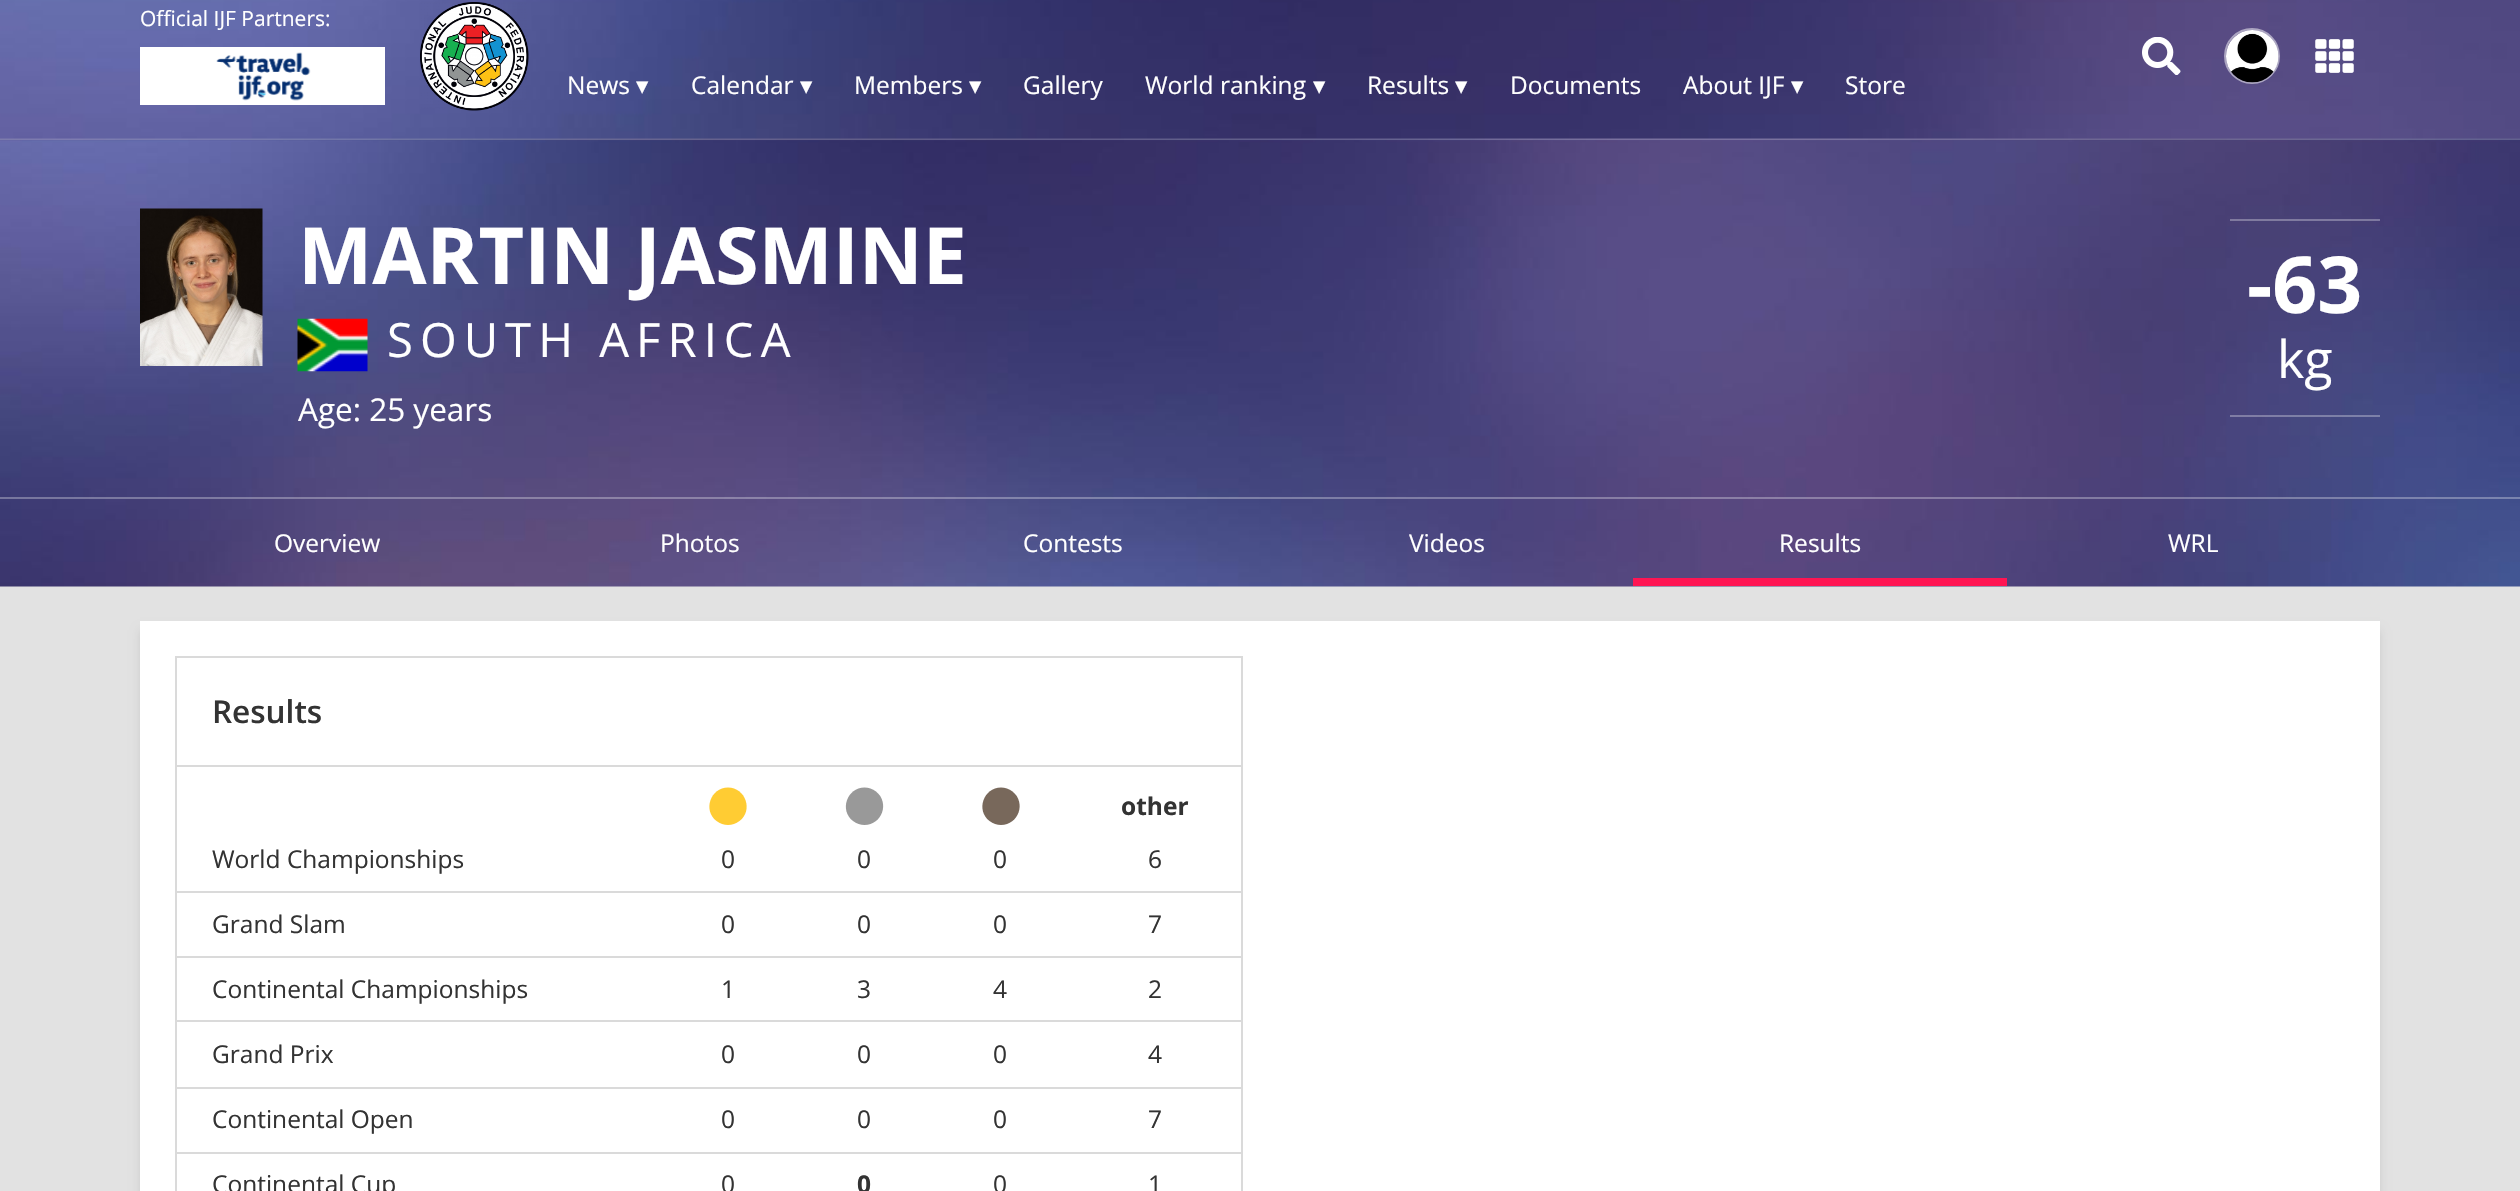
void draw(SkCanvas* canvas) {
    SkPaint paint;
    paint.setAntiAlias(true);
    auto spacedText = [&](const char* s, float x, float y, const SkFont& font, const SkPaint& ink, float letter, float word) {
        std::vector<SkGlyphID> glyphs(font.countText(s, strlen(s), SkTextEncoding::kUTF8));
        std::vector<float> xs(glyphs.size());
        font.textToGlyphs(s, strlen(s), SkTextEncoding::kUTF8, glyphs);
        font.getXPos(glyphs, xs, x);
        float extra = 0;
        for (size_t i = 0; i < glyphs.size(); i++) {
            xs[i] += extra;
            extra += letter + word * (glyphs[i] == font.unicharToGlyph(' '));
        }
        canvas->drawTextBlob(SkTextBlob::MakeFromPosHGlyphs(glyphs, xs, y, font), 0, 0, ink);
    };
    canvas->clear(0xFFE2E2E2);
    canvas->drawImageRect(SkImages::DeferredFromEncodedData(SkData::MakeFromFileName("img8.png")), SkRect::MakeXYWH(0, 140, 2520, 447), SkSamplingOptions());
    canvas->drawImageRect(SkImages::DeferredFromEncodedData(SkData::MakeFromFileName("img1.png")), SkRect::MakeXYWH(0, 138, 2520, 3), SkSamplingOptions());
    paint.setColor(0x33FFFFFF);
    canvas->drawRect(SkRect::MakeXYWH(0, 138, 2520, 2), paint);
    canvas->drawImageRect(SkImages::DeferredFromEncodedData(SkData::MakeFromFileName("img2.png")), SkRect::MakeXYWH(0, 0, 2520, 139), SkSamplingOptions());
    SkFont font1(fontMgr->matchFamilyStyle("Open Sans", SkFontStyle::Normal()), 21);
    font1.setSubpixel(true);
    paint.setColor(0xFFFFFFFF);
    canvas->drawString("Official IJF Partners:", 140, 26, font1, paint);
    canvas->drawRect(SkRect::MakeXYWH(140, 47, 245, 58), paint);
    canvas->drawImageRect(SkImages::DeferredFromEncodedData(SkData::MakeFromFileName("img3.png")), SkRect::MakeXYWH(216, 52, 95, 49), SkSamplingOptions());
    canvas->drawImageRect(SkImages::DeferredFromEncodedData(SkData::MakeFromFileName("img4.png")), SkRect::MakeXYWH(420, 2, 109, 109), SkSamplingOptions());
    canvas->drawImageRect(SkImages::DeferredFromEncodedData(SkData::MakeFromFileName("img5.png")), SkRect::MakeXYWH(2142, 37, 39, 38), SkSamplingOptions());
    paint.setStyle(SkPaint::kStroke_Style);
    paint.setStrokeWidth(2);
    paint.setColor(0x80FFFFFF);
    canvas->drawCircle(2252, 56, 27, paint);
    canvas->drawImageRect(SkImages::DeferredFromEncodedData(SkData::MakeFromFileName("img6.png")), SkRect::MakeXYWH(2226, 30, 53, 53), SkSamplingOptions());
    canvas->drawImageRect(SkImages::DeferredFromEncodedData(SkData::MakeFromFileName("img7.png")), SkRect::MakeXYWH(2315, 39, 39, 34), SkSamplingOptions());
    SkFont font2(fontMgr->matchFamilyStyle("Open Sans", SkFontStyle::Normal()), 24.5f);
    font2.setSubpixel(true);
    paint.setStyle(SkPaint::kFill_Style);
    paint.setColor(0xFFFFFFFF);
    canvas->drawString("News", 567, 94, font2, paint);
    SkFont font3(fontMgr->matchFamilyStyle("DejaVu Sans", SkFontStyle::Normal()), 24.5f);
    font3.setSubpixel(true);
    canvas->drawString("▾", 636, 94, font3, paint);
    canvas->drawString("Calendar", 691, 94, font2, paint);
    canvas->drawString("▾", 800, 94, font3, paint);
    canvas->drawString("Members", 854, 94, font2, paint);
    canvas->drawString("▾", 969, 94, font3, paint);
    canvas->drawString("Gallery", 1023, 94, font2, paint);
    canvas->drawString("World ranking", 1145, 94, font2, paint);
    canvas->drawString("▾", 1313, 94, font3, paint);
    canvas->drawString("Results", 1367, 94, font2, paint);
    canvas->drawString("▾", 1455, 94, font3, paint);
    canvas->drawString("Documents", 1510, 94, font2, paint);
    canvas->drawString("About IJF", 1683, 94, font2, paint);
    canvas->drawString("▾", 1791, 94, font3, paint);
    canvas->drawString("Store", 1845, 94, font2, paint);
    canvas->drawImageRect(SkImages::DeferredFromEncodedData(SkData::MakeFromFileName("img9.png")), SkRect::MakeXYWH(140, 208, 123, 158), SkSamplingOptions());
    SkFont font4(fontMgr->matchFamilyStyle("Open Sans", SkFontStyle::Bold()), 78.75f);
    font4.setSubpixel(true);
    canvas->drawString("MARTIN JASMINE", 298, 284, font4, paint);
    canvas->drawImageRect(SkImages::DeferredFromEncodedData(SkData::MakeFromFileName("img10.png")), SkRect::MakeXYWH(297, 318, 71, 54), SkSamplingOptions());
    SkFont font5(fontMgr->matchFamilyStyle("Open Sans", SkFontStyle::Normal()), 47.25f);
    font5.setSubpixel(true);
    spacedText("SOUTH AFRICA", 387, 357, font5, paint, 7, 0);
    SkFont font6(fontMgr->matchFamilyStyle("Open Sans", SkFontStyle::Normal()), 31.5f);
    font6.setSubpixel(true);
    canvas->drawString("Age: 25 years", 298, 421, font6, paint);
    paint.setColor(0x4DFFFFFF);
    canvas->drawRect(SkRect::MakeXYWH(2230, 219, 150, 2), paint);
    canvas->drawRect(SkRect::MakeXYWH(2230, 415, 150, 2), paint);
    paint.setColor(0xFFFFFFFF);
    canvas->drawString("-63", 2247, 313, font4, paint);
    SkFont font7(fontMgr->matchFamilyStyle("Open Sans", SkFontStyle::Normal()), 52);
    font7.setSubpixel(true);
    canvas->drawString("kg", 2277, 378, font7, paint);
    paint.setColor(0x4DFFFFFF);
    canvas->drawRect(SkRect::MakeXYWH(0, 497, 2520, 2), paint);
    paint.setColor(0xFFFFFFFF);
    canvas->drawString("Overview", 274, 552, font2, paint);
    canvas->drawString("Photos", 660, 552, font2, paint);
    canvas->drawString("Contests", 1023, 552, font2, paint);
    canvas->drawString("Videos", 1409, 552, font2, paint);
    canvas->drawString("Results", 1779, 552, font2, paint);
    paint.setColor(0xFFFF1553);
    canvas->drawRect(SkRect::MakeXYWH(1633, 578, 374, 8), paint);
    paint.setColor(0xFFFFFFFF);
    canvas->drawString("WRL", 2168, 552, font2, paint);
    paint.setColor(0x1A000000);
    paint.setMaskFilter(SkMaskFilter::MakeBlur(kNormal_SkBlurStyle, 4.5f));
    canvas->drawRect(SkRect::MakeXYWH(140, 630, 2240, 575), paint);
    paint.setMaskFilter(nullptr);
    paint.setColor(0xFFFFFFFF);
    canvas->drawRect(SkRect::MakeXYWH(140, 621, 2240, 570), paint);
    paint.setStyle(SkPaint::kStroke_Style);
    paint.setColor(0xFFDADADA);
    canvas->drawRect(SkRect::MakeXYWH(176, 657, 1066, 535), paint);
    paint.setStyle(SkPaint::kFill_Style);
    canvas->drawRect(SkRect::MakeXYWH(177, 765, 1064, 2), paint);
    SkFont font8(fontMgr->matchFamilyStyle("Open Sans", SkFontStyle(600, SkFontStyle::kNormal_Width, SkFontStyle::kUpright_Slant)), 31.5f);
    font8.setSubpixel(true);
    paint.setColor(0xFF333333);
    canvas->drawString("Results", 212, 723, font8, paint);
    paint.setColor(0xFFFFCC33);
    canvas->drawPath(SkPathBuilder().moveTo(728, 787.5f).cubicTo(710.5f, 787.5f, 702.5f, 810.5f, 716.5f, 821).cubicTo(720, 823.5f, 724, 825, 728, 825).cubicTo(732, 825, 736, 823.5f, 739.5f, 821).cubicTo(753.5f, 810.5f, 745.5f, 787.5f, 728, 787.5f).close().detach(), paint);
    paint.setColor(0xFF999999);
    canvas->drawPath(SkPathBuilder().moveTo(864.5f, 787.5f).cubicTo(847, 787.5f, 839, 810.5f, 853, 821).cubicTo(856.5f, 823.5f, 860.5f, 825, 864.5f, 825).cubicTo(882, 825, 890, 802.5f, 876, 791.5f).cubicTo(872.5f, 789, 868.5f, 787.5f, 864.5f, 787.5f).close().detach(), paint);
    paint.setColor(0xFF78685B);
    canvas->drawPath(SkPathBuilder().moveTo(1001, 787.5f).cubicTo(983.5f, 787.5f, 975.5f, 810.5f, 989.5f, 821).cubicTo(993, 823.5f, 997, 825, 1001, 825).cubicTo(1018.5f, 825, 1026.5f, 802.5f, 1012.5f, 791.5f).cubicTo(1009, 789, 1005, 787.5f, 1001, 787.5f).close().detach(), paint);
    SkFont font9(fontMgr->matchFamilyStyle("Open Sans", SkFontStyle::Bold()), 24.5f);
    font9.setSubpixel(true);
    paint.setColor(0xFF333333);
    canvas->drawString("other", 1121, 815, font9, paint);
    canvas->drawString("World Championships", 212, 868, font2, paint);
    canvas->drawString("0", 721, 868, font2, paint);
    canvas->drawString("0", 857, 868, font2, paint);
    canvas->drawString("0", 993, 868, font2, paint);
    canvas->drawString("6", 1148, 868, font2, paint);
    canvas->drawString("Grand Slam", 212, 933, font2, paint);
    canvas->drawString("0", 721, 933, font2, paint);
    canvas->drawString("0", 857, 933, font2, paint);
    canvas->drawString("0", 993, 933, font2, paint);
    paint.setColor(0xFFDADADA);
    canvas->drawRect(SkRect::MakeXYWH(177, 891, 1066, 2), paint);
    paint.setColor(0xFF333333);
    canvas->drawString("7", 1148, 933, font2, paint);
    canvas->drawString("Continental Championships", 212, 998, font2, paint);
    canvas->drawString("1", 721, 998, font2, paint);
    canvas->drawString("3", 857, 998, font2, paint);
    canvas->drawString("4", 993, 998, font2, paint);
    paint.setColor(0xFFDADADA);
    canvas->drawRect(SkRect::MakeXYWH(177, 956, 1066, 2), paint);
    paint.setColor(0xFF333333);
    canvas->drawString("2", 1148, 998, font2, paint);
    canvas->drawString("Grand Prix", 212, 1063, font2, paint);
    canvas->drawString("0", 721, 1063, font2, paint);
    canvas->drawString("0", 857, 1063, font2, paint);
    canvas->drawString("0", 993, 1063, font2, paint);
    paint.setColor(0xFFDADADA);
    canvas->drawRect(SkRect::MakeXYWH(177, 1020, 1066, 2), paint);
    paint.setColor(0xFF333333);
    canvas->drawString("4", 1148, 1063, font2, paint);
    canvas->drawString("Continental Open", 212, 1128, font2, paint);
    canvas->drawString("0", 721, 1128, font2, paint);
    canvas->drawString("0", 857, 1128, font2, paint);
    canvas->drawString("0", 993, 1128, font2, paint);
    paint.setColor(0xFFDADADA);
    canvas->drawRect(SkRect::MakeXYWH(177, 1087, 1066, 2), paint);
    paint.setColor(0xFF333333);
    canvas->drawString("7", 1148, 1128, font2, paint);
    canvas->drawString("Continental Cup", 212, 1193, font2, paint);
    canvas->drawString("0", 721, 1193, font2, paint);
    canvas->drawString("0", 857, 1193, font9, paint);
    canvas->drawString("0", 993, 1193, font2, paint);
    paint.setColor(0xFFDADADA);
    canvas->drawRect(SkRect::MakeXYWH(177, 1152, 1066, 2), paint);
    paint.setColor(0xFF333333);
    canvas->drawString("1", 1148, 1193, font2, paint);
}
